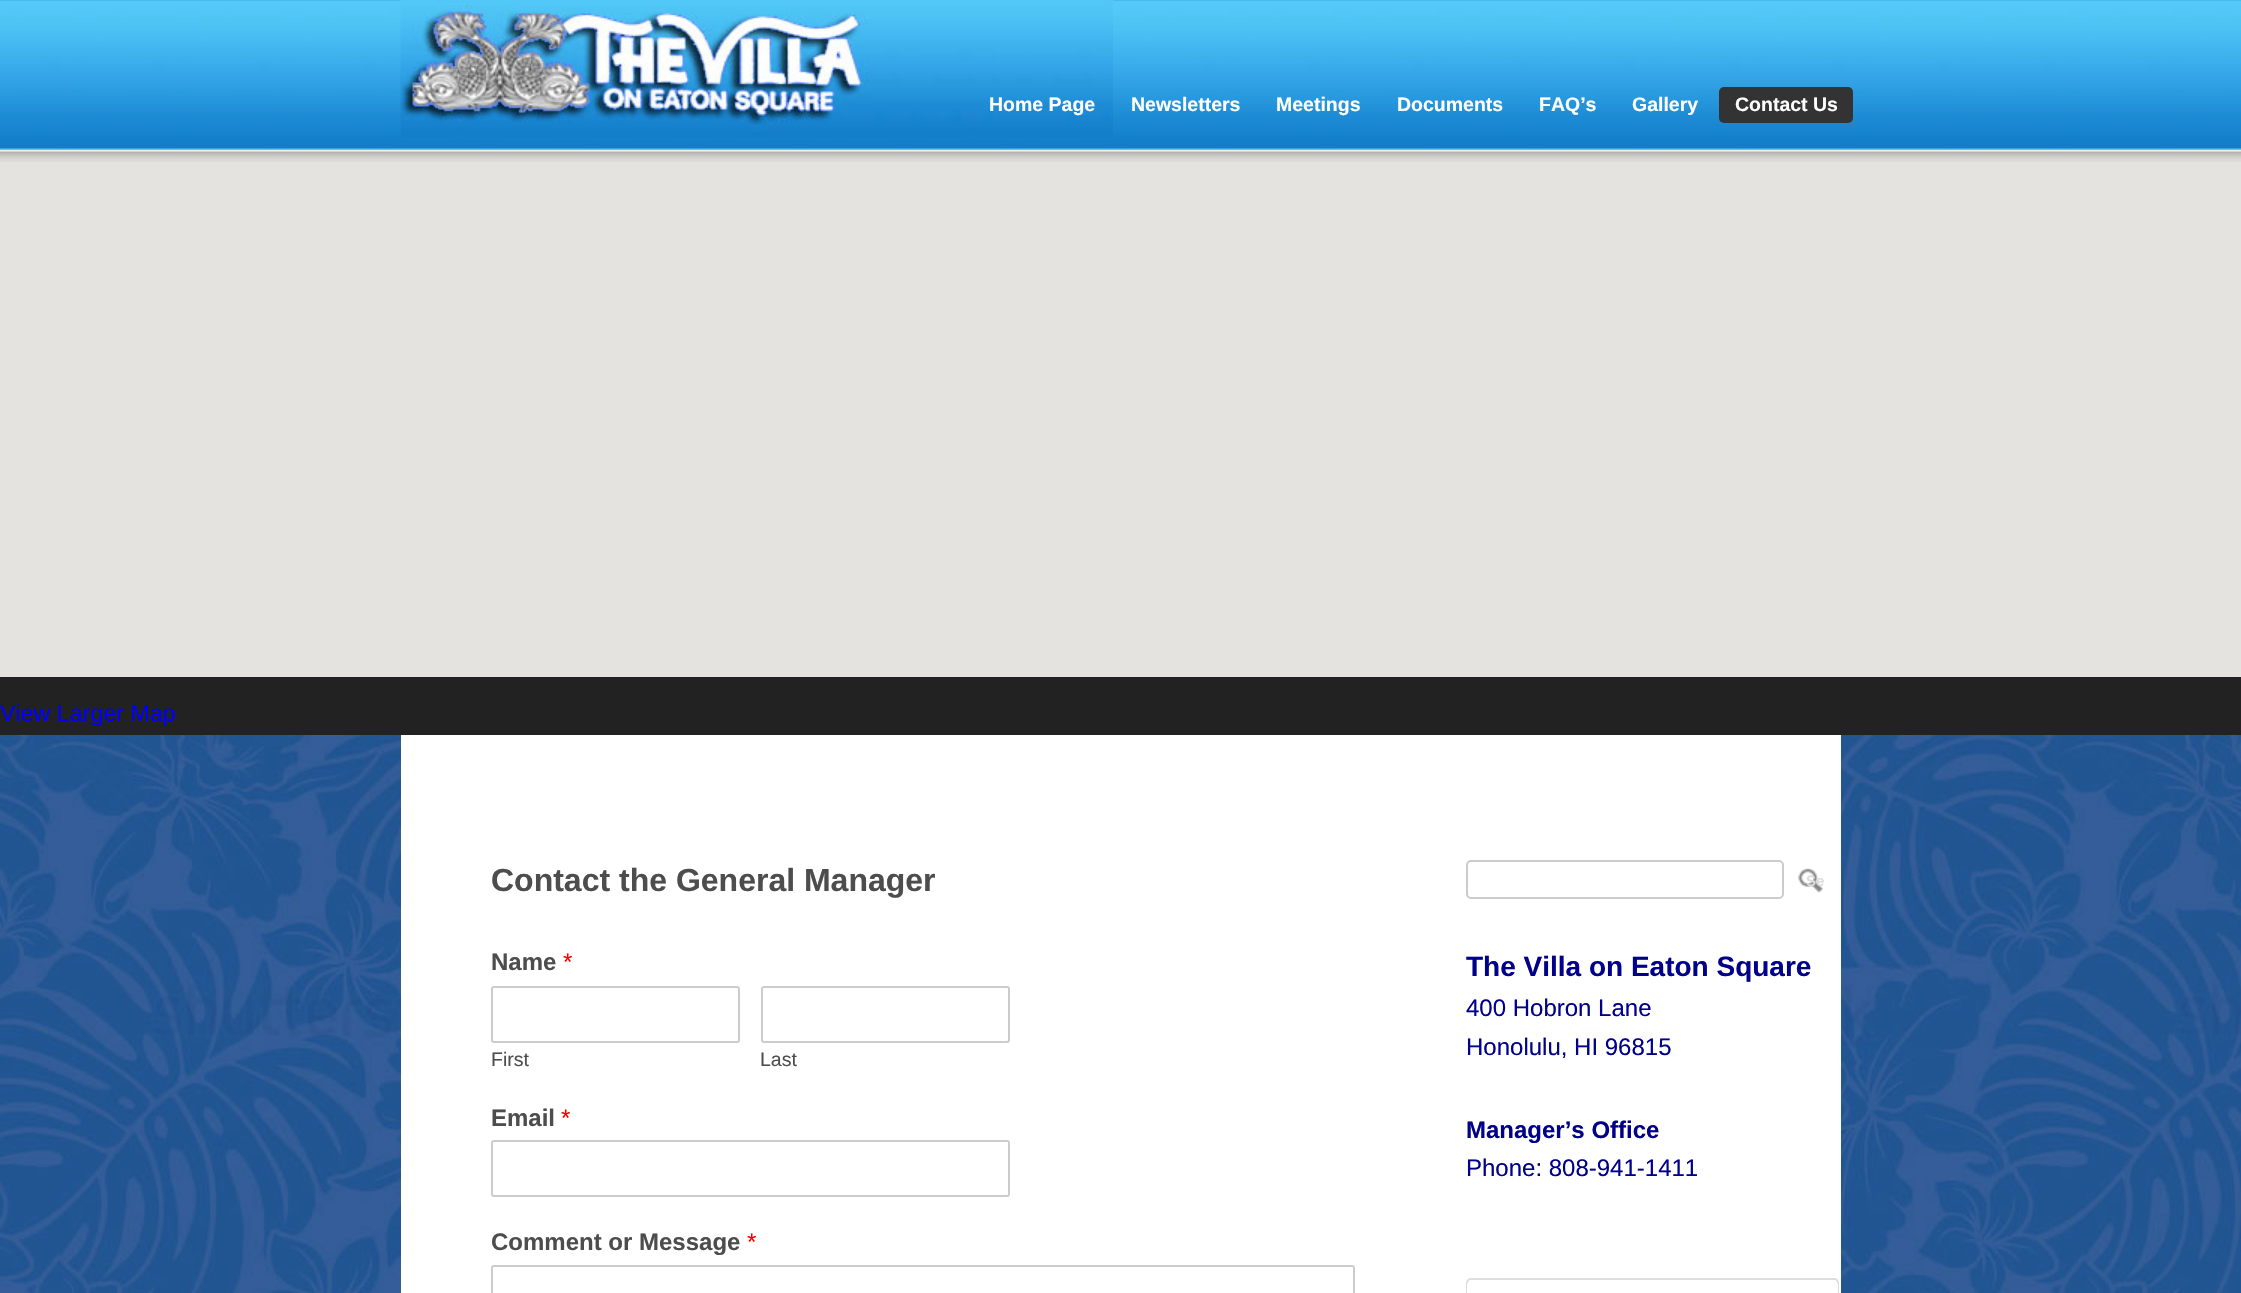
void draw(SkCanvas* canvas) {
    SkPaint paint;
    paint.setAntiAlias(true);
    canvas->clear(0xFFFFFFFF);
    canvas->drawImageRect(SkImages::DeferredFromEncodedData(SkData::MakeFromFileName("img1.png")), SkRect::MakeXYWH(0, 735, 2241, 558), SkSamplingOptions());
    canvas->drawImageRect(SkImages::DeferredFromEncodedData(SkData::MakeFromFileName("img2.png")), SkRect::MakeXYWH(0, 0, 2241, 150), SkSamplingOptions());
    paint.setColor(0xFFEEEEEE);
    canvas->drawRect(SkRect::MakeXYWH(0, 150, 2241, 2), paint);
    canvas->drawImageRect(SkImages::DeferredFromEncodedData(SkData::MakeFromFileName("img3.png")), SkRect::MakeXYWH(400, 0, 713, 137), SkSamplingOptions());
    SkFont font1(fontMgr->matchFamilyStyle("Liberation Sans", SkFontStyle::Bold()), 19.5f);
    font1.setSubpixel(true);
    paint.setColor(0xFFFFFFFF);
    canvas->drawString("Home Page", 989, 111, font1, paint);
    canvas->drawString("Newsletters", 1131, 111, font1, paint);
    canvas->drawString("Meetings", 1276, 111, font1, paint);
    canvas->drawString("Documents", 1397, 111, font1, paint);
    canvas->drawString("FAQ’s", 1539, 111, font1, paint);
    canvas->drawString("Gallery", 1632, 111, font1, paint);
    paint.setColor(0xFF333333);
    canvas->drawRoundRect(SkRect::MakeXYWH(1719, 87, 134, 36), 5, 5, paint);
    paint.setColor(0xFFFFFFFF);
    canvas->drawString("Contact Us", 1735, 111, font1, paint);
    paint.setColor(0xFF222222);
    canvas->drawRect(SkRect::MakeXYWH(0, 677, 2241, 58), paint);
    paint.setColor(0xFFE5E3DF);
    canvas->drawRect(SkRect::MakeXYWH(0, 152, 2241, 525), paint);
    canvas->drawImageRect(SkImages::DeferredFromEncodedData(SkData::MakeFromFileName("img4.png")), SkRect::MakeXYWH(0, 151, 2241, 11), SkSamplingOptions());
    SkFont font2(fontMgr->matchFamilyStyle("Liberation Sans", SkFontStyle::Normal()), 23.25f);
    font2.setSubpixel(true);
    paint.setColor(0xFF0000FF);
    canvas->drawString("View Larger Map", 0, 721, font2, paint);
    paint.setColor(0xFFFFFFFF);
    canvas->drawRect(SkRect::MakeXYWH(401, 735, 1440, 558), paint);
    SkFont font3(fontMgr->matchFamilyStyle("Liberation Sans", SkFontStyle::Bold()), 32);
    font3.setSubpixel(true);
    paint.setColor(0xFF4D4D4D);
    canvas->drawString("Contact the General Manager", 491, 891, font3, paint);
    SkFont font4(fontMgr->matchFamilyStyle("Liberation Sans", SkFontStyle::Bold()), 24);
    font4.setSubpixel(true);
    canvas->drawString("Name", 491, 970, font4, paint);
    SkFont font5(fontMgr->matchFamilyStyle("Liberation Sans", SkFontStyle::Normal()), 24);
    font5.setSubpixel(true);
    paint.setColor(0xFFFF0000);
    canvas->drawString("*", 563, 970, font5, paint);
    paint.setStyle(SkPaint::kStroke_Style);
    paint.setStrokeWidth(2);
    paint.setColor(0xFFCCCCCC);
    canvas->drawRoundRect(SkRect::MakeXYWH(492, 987, 247, 55), 2, 2, paint);
    SkFont font6(fontMgr->matchFamilyStyle("Liberation Sans", SkFontStyle::Normal()), 19.5f);
    font6.setSubpixel(true);
    paint.setStyle(SkPaint::kFill_Style);
    paint.setColor(0xFF4D4D4D);
    canvas->drawString("First", 491, 1066, font6, paint);
    paint.setStyle(SkPaint::kStroke_Style);
    paint.setColor(0xFFCCCCCC);
    canvas->drawRoundRect(SkRect::MakeXYWH(762, 987, 247, 55), 2, 2, paint);
    paint.setStyle(SkPaint::kFill_Style);
    paint.setColor(0xFF4D4D4D);
    canvas->drawString("Last", 760, 1066, font6, paint);
    canvas->drawString("Email", 491, 1126, font4, paint);
    paint.setColor(0xFFFF0000);
    canvas->drawString("*", 561, 1126, font5, paint);
    paint.setStyle(SkPaint::kStroke_Style);
    paint.setColor(0xFFCCCCCC);
    canvas->drawRoundRect(SkRect::MakeXYWH(492, 1141, 517, 55), 2, 2, paint);
    paint.setStyle(SkPaint::kFill_Style);
    paint.setColor(0xFF4D4D4D);
    canvas->drawString("Comment or Message", 491, 1250, font4, paint);
    paint.setColor(0xFFFF0000);
    canvas->drawString("*", 747, 1250, font5, paint);
    paint.setStyle(SkPaint::kStroke_Style);
    paint.setColor(0xFFCCCCCC);
    canvas->drawRoundRect(SkRect::MakeXYWH(492, 1266, 862, 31), 2, 2, paint);
    canvas->drawRoundRect(SkRect::MakeXYWH(1467, 861, 316, 37), 4, 4, paint);
    canvas->drawImageRect(SkImages::DeferredFromEncodedData(SkData::MakeFromFileName("img5.png")), SkRect::MakeXYWH(1798, 868, 25, 25), SkSamplingOptions());
    SkFont font7(fontMgr->matchFamilyStyle("Liberation Sans", SkFontStyle::Bold()), 15);
    font7.setSubpixel(true);
    paint.setStyle(SkPaint::kFill_Style);
    paint.setColor(0xFFDCDCDC);
    canvas->drawString("Se", 1806, 886, font7, paint);
    canvas->save();
    canvas->clipRect(SkRect::MakeXYWH(1466, 795, 375, 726));
    SkFont font8(fontMgr->matchFamilyStyle("Liberation Sans", SkFontStyle::Bold()), 28);
    font8.setSubpixel(true);
    paint.setColor(0xFF00008B);
    canvas->drawString("The Villa on Eaton Square", 1466, 976, font8, paint);
    canvas->restore();
    canvas->drawString("400 Hobron Lane", 1466, 1016, font5, paint);
    canvas->drawString("Honolulu, HI 96815", 1466, 1055, font5, paint);
    canvas->drawString("Manager’s Office", 1466, 1138, font4, paint);
    canvas->drawString("Phone: 808-941-1411", 1466, 1176, font5, paint);
    paint.setStyle(SkPaint::kStroke_Style);
    paint.setColor(0xFFDDDDDD);
    canvas->drawRoundRect(SkRect::MakeXYWH(1467, 1279, 371, 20), 4, 4, paint);
    paint.setColor(0xFFFFFFFF);
    canvas->drawRoundRect(SkRect::MakeXYWH(1468, 1281, 369, 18), 4, 4, paint);
}
